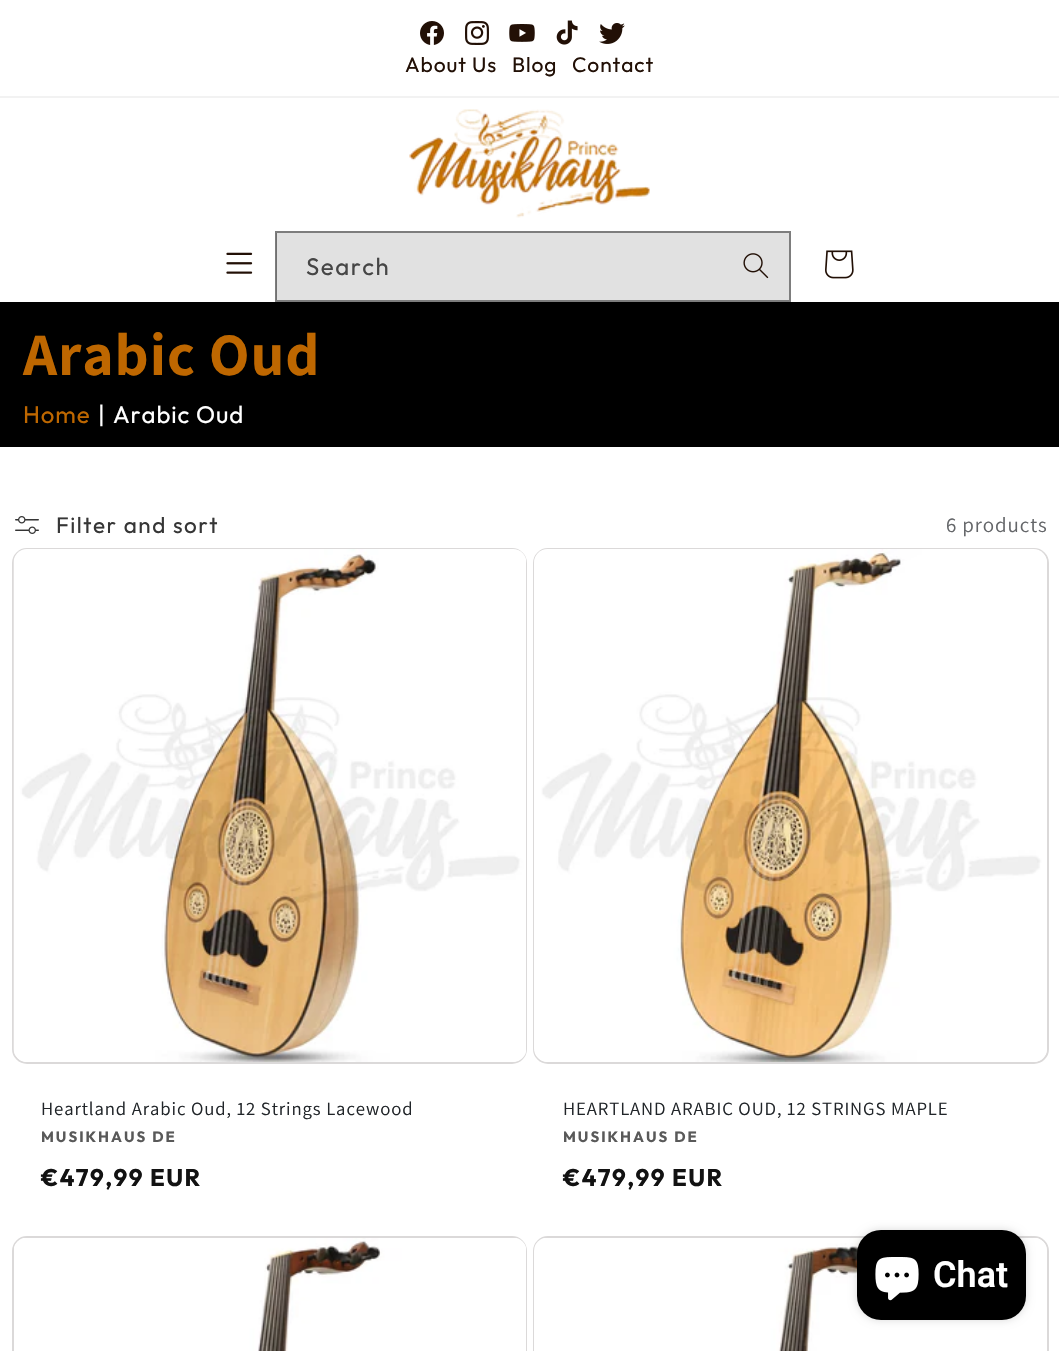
void draw(SkCanvas* canvas) {
    SkPaint paint;
    paint.setAntiAlias(true);
    auto spacedText = [&](const char* s, float x, float y, const SkFont& font, const SkPaint& ink, float letter, float word) {
        std::vector<SkGlyphID> glyphs(font.countText(s, strlen(s), SkTextEncoding::kUTF8));
        std::vector<float> xs(glyphs.size());
        font.textToGlyphs(s, strlen(s), SkTextEncoding::kUTF8, glyphs);
        font.getXPos(glyphs, xs, x);
        float extra = 0;
        for (size_t i = 0; i < glyphs.size(); i++) {
            xs[i] += extra;
            extra += letter + word * (glyphs[i] == font.unicharToGlyph(' '));
        }
        canvas->drawTextBlob(SkTextBlob::MakeFromPosHGlyphs(glyphs, xs, y, font), 0, 0, ink);
    };
    canvas->clear(0xFFFFFFFF);
    paint.setColor(0xFFF2F2F2);
    canvas->drawRect(SkRect::MakeXYWH(0, 96, 1059, 2), paint);
    canvas->drawImageRect(SkImages::DeferredFromEncodedData(SkData::MakeFromFileName("img1.png")), SkRect::MakeXYWH(420, 21, 24, 24), SkSamplingOptions());
    canvas->drawImageRect(SkImages::DeferredFromEncodedData(SkData::MakeFromFileName("img2.png")), SkRect::MakeXYWH(465, 21, 24, 24), SkSamplingOptions());
    canvas->drawImageRect(SkImages::DeferredFromEncodedData(SkData::MakeFromFileName("img3.png")), SkRect::MakeXYWH(509, 24, 26, 18), SkSamplingOptions());
    canvas->drawImageRect(SkImages::DeferredFromEncodedData(SkData::MakeFromFileName("img4.png")), SkRect::MakeXYWH(556, 20, 22, 25), SkSamplingOptions());
    canvas->drawImageRect(SkImages::DeferredFromEncodedData(SkData::MakeFromFileName("img5.png")), SkRect::MakeXYWH(599, 23, 26, 21), SkSamplingOptions());
    SkFont font1(fontMgr->matchFamilyStyle("Outfit", SkFontStyle::Normal()), 21);
    font1.setSubpixel(true);
    paint.setColor(0xFF221006);
    spacedText("About Us", 405, 72, font1, paint, 0.9f, 0);
    spacedText("Blog", 512, 72, font1, paint, 0.9f, 0);
    spacedText("Contact", 572, 72, font1, paint, 0.9f, 0);
    canvas->drawImageRect(SkImages::DeferredFromEncodedData(SkData::MakeFromFileName("img6.png")), SkRect::MakeXYWH(409, 109, 241, 109), SkSamplingOptions());
    canvas->drawImageRect(SkImages::DeferredFromEncodedData(SkData::MakeFromFileName("img7.png")), SkRect::MakeXYWH(226, 252, 27, 22), SkSamplingOptions());
    paint.setColor(0xFFE1E1E1);
    canvas->drawRect(SkRect::MakeXYWH(276, 233, 513, 67), paint);
    canvas->drawImageRect(SkImages::DeferredFromEncodedData(SkData::MakeFromFileName("img8.png")), SkRect::MakeXYWH(743, 253, 26, 26), SkSamplingOptions());
    paint.setStyle(SkPaint::kStroke_Style);
    paint.setStrokeWidth(2);
    paint.setColor(0x8C121212);
    canvas->drawRect(SkRect::MakeXYWH(276, 232, 514, 69), paint);
    SkFont font2(fontMgr->matchFamilyStyle("Outfit", SkFontStyle::Normal()), 24);
    font2.setSubpixel(true);
    paint.setStyle(SkPaint::kFill_Style);
    paint.setColor(0xFF464646);
    spacedText("Search", 306, 275, font2, paint, 1.5f, 0);
    canvas->drawImageRect(SkImages::DeferredFromEncodedData(SkData::MakeFromFileName("img9.png")), SkRect::MakeXYWH(825, 250, 29, 29), SkSamplingOptions());
    paint.setColor(0xFF000000);
    canvas->drawRect(SkRect::MakeXYWH(0, 302, 1059, 145), paint);
    SkFont font3(fontMgr->matchFamilyStyle("Assistant", SkFontStyle::Bold()), 60);
    font3.setSubpixel(true);
    paint.setColor(0xFFBE6700);
    spacedText("Arabic Oud", 23, 375, font3, paint, 0.9f, 0);
    spacedText("Home", 23, 423, font2, paint, 0.9f, 0);
    paint.setColor(0xFFFFFFFF);
    spacedText("|", 98, 423, font2, paint, 0.9f, 0);
    spacedText("Arabic Oud", 113, 423, font2, paint, 0.9f, 0);
    canvas->drawImageRect(SkImages::DeferredFromEncodedData(SkData::MakeFromFileName("img10.png")), SkRect::MakeXYWH(15, 516, 24, 18), SkSamplingOptions());
    SkFont font4(fontMgr->matchFamilyStyle("Outfit", SkFontStyle::Normal()), 22.5f);
    font4.setSubpixel(true);
    paint.setColor(0xFF363636);
    spacedText("Filter and sort", 56, 533, font4, paint, 1.5f, 0);
    SkFont font5(fontMgr->matchFamilyStyle("Assistant", SkFontStyle::Normal()), 21);
    font5.setSubpixel(true);
    paint.setColor(0xFF646669);
    spacedText("6 products", 946, 532, font5, paint, 0.9f, 0);
    paint.setStyle(SkPaint::kStroke_Style);
    paint.setColor(0xFFDBD9D9);
    canvas->drawRoundRect(SkRect::MakeXYWH(13, 549, 513, 514), 14, 14, paint);
    canvas->drawImageRect(SkImages::DeferredFromEncodedData(SkData::MakeFromFileName("img11.png")), SkRect::MakeXYWH(13, 549, 513, 513), SkSamplingOptions());
    SkFont font6(fontMgr->matchFamilyStyle("Assistant", SkFontStyle::Normal()), 18.75f);
    font6.setSubpixel(true);
    paint.setStyle(SkPaint::kFill_Style);
    paint.setColor(0xFF212529);
    spacedText("Heartland Arabic Oud, 12 Strings Lacewood", 41, 1115, font6, paint, 0.9f, 0);
    SkFont font7(fontMgr->matchFamilyStyle("Outfit", SkFontStyle::Bold()), 15);
    font7.setSubpixel(true);
    paint.setColor(0xFF595959);
    spacedText("MUSIKHAUS DE", 41, 1142, font7, paint, 2, 0);
    SkFont font8(fontMgr->matchFamilyStyle("Outfit", SkFontStyle::Bold()), 24);
    font8.setSubpixel(true);
    paint.setColor(0xFF121212);
    spacedText("€479,99 EUR", 41, 1186, font8, paint, 1.5f, 0);
    paint.setStyle(SkPaint::kStroke_Style);
    paint.setColor(0xFFDBD9D9);
    canvas->drawRoundRect(SkRect::MakeXYWH(534, 549, 514, 514), 14, 14, paint);
    canvas->drawImageRect(SkImages::DeferredFromEncodedData(SkData::MakeFromFileName("img12.png")), SkRect::MakeXYWH(534, 549, 513, 513), SkSamplingOptions());
    paint.setStyle(SkPaint::kFill_Style);
    paint.setColor(0xFF212529);
    spacedText("HEARTLAND ARABIC OUD, 12 STRINGS MAPLE", 563, 1115, font6, paint, 0.9f, 0);
    paint.setColor(0xFF595959);
    spacedText("MUSIKHAUS DE", 563, 1142, font7, paint, 2, 0);
    paint.setColor(0xFF121212);
    spacedText("€479,99 EUR", 563, 1186, font8, paint, 1.5f, 0);
    paint.setStyle(SkPaint::kStroke_Style);
    paint.setColor(0xFFDBD9D9);
    canvas->drawRoundRect(SkRect::MakeXYWH(13, 1237, 513, 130), 14, 14, paint);
    canvas->drawImageRect(SkImages::DeferredFromEncodedData(SkData::MakeFromFileName("img13.png")), SkRect::MakeXYWH(14, 1238, 512, 113), SkSamplingOptions());
    canvas->drawRoundRect(SkRect::MakeXYWH(534, 1237, 514, 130), 14, 14, paint);
    canvas->drawImageRect(SkImages::DeferredFromEncodedData(SkData::MakeFromFileName("img14.png")), SkRect::MakeXYWH(534, 1238, 513, 113), SkSamplingOptions());
    paint.setStyle(SkPaint::kFill_Style);
    paint.setColor(0x26000000);
    paint.setMaskFilter(SkMaskFilter::MakeBlur(kNormal_SkBlurStyle, 4));
    canvas->drawRoundRect(SkRect::MakeXYWH(857, 1230, 169, 90), 24, 24, paint);
    paint.setMaskFilter(nullptr);
    paint.setColor(0xFF000000);
    canvas->drawRoundRect(SkRect::MakeXYWH(857, 1230, 169, 90), 24, 24, paint);
    canvas->drawImageRect(SkImages::DeferredFromEncodedData(SkData::MakeFromFileName("img15.png")), SkRect::MakeXYWH(875, 1257, 44, 44), SkSamplingOptions());
    SkFont font9(fontMgr->matchFamilyStyle("Roboto", SkFontStyle(600, SkFontStyle::kNormal_Width, SkFontStyle::kUpright_Slant)), 36);
    font9.setSubpixel(true);
    paint.setColor(0xFFFFFFFF);
    canvas->drawString("Chat", 933, 1287, font9, paint);
}
